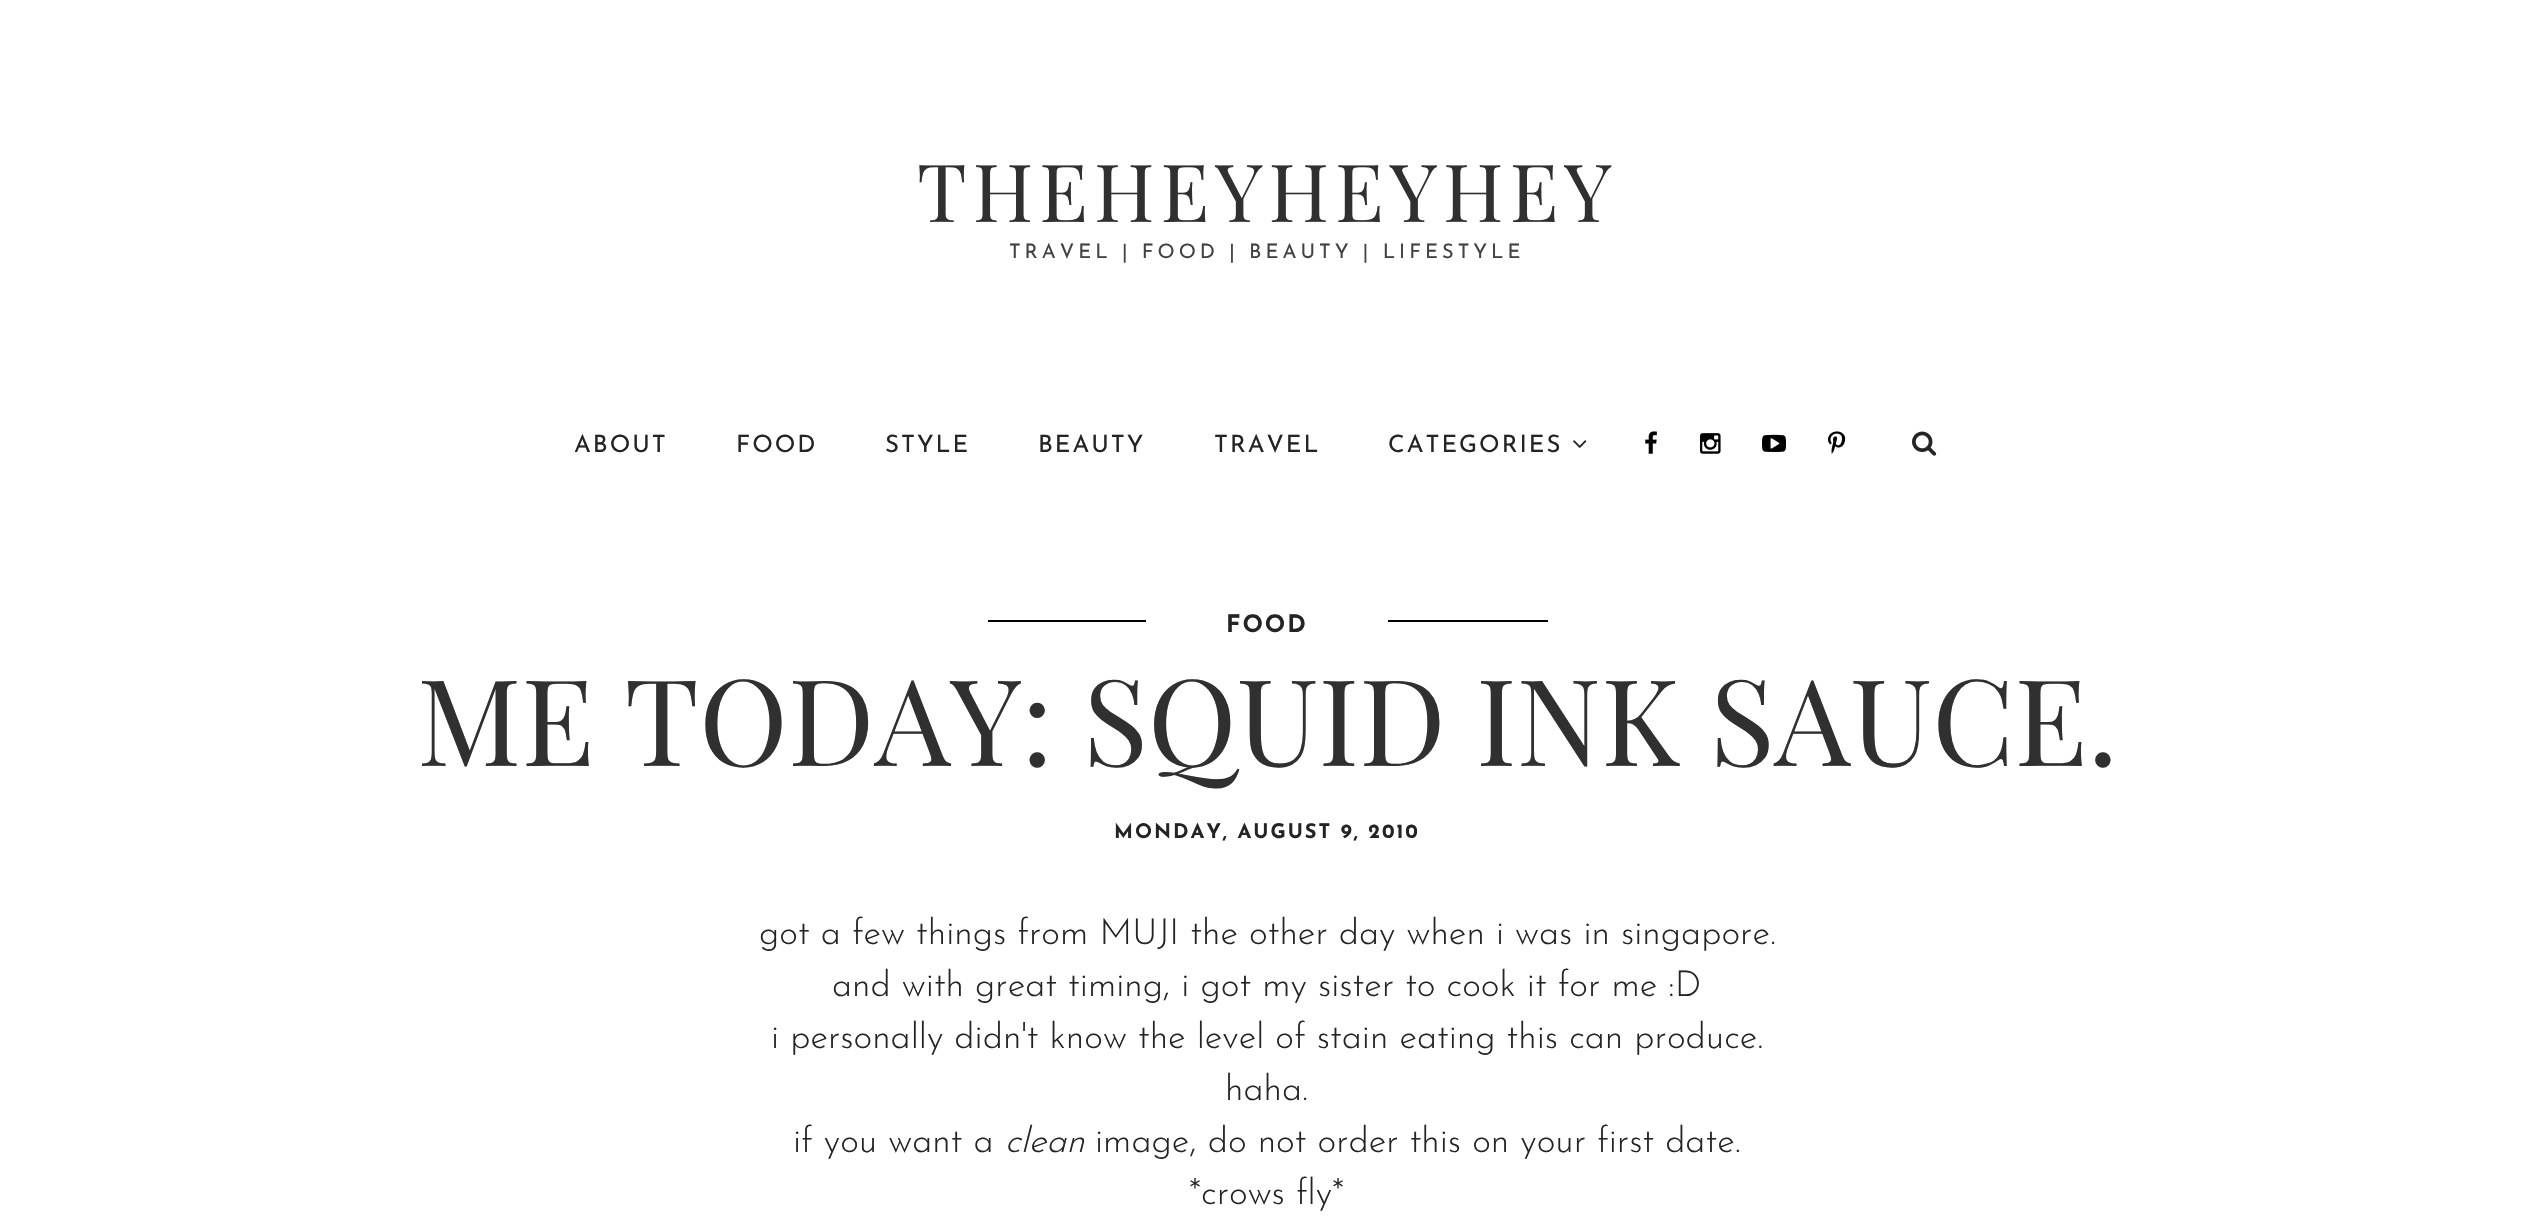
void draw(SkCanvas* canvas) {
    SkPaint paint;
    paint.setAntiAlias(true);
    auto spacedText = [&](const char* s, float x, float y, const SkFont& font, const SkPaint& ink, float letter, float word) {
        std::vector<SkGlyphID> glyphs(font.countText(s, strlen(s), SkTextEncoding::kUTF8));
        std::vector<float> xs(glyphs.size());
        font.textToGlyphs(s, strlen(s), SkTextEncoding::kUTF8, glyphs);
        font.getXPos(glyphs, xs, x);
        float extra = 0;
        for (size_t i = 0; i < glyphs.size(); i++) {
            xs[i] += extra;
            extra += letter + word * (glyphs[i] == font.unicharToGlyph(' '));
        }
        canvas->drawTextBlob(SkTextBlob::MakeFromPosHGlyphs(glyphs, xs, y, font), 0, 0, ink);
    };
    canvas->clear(0xFFFFFFFF);
    SkFont font1(fontMgr->matchFamilyStyle("Playfair Display", SkFontStyle::Normal()), 80);
    font1.setSubpixel(true);
    paint.setColor(0xFF303030);
    spacedText("THEHEYHEYHEY", 917, 222, font1, paint, 6, 0);
    SkFont font2(fontMgr->matchFamilyStyle("Josefin Sans", SkFontStyle::Normal()), 20);
    font2.setSubpixel(true);
    paint.setColor(0xFF424242);
    spacedText("TRAVEL | FOOD | BEAUTY | LIFESTYLE", 1009, 258, font2, paint, 4, 0);
    SkFont font3(fontMgr->matchFamilyStyle("Josefin Sans", SkFontStyle::Normal()), 24);
    font3.setSubpixel(true);
    paint.setColor(0xFF242424);
    spacedText("ABOUT", 574, 452, font3, paint, 2, 0);
    spacedText("FOOD", 736, 452, font3, paint, 2, 0);
    spacedText("STYLE", 885, 452, font3, paint, 2, 0);
    spacedText("BEAUTY", 1038, 452, font3, paint, 2, 0);
    spacedText("TRAVEL", 1214, 452, font3, paint, 2, 0);
    spacedText("CATEGORIES", 1388, 452, font3, paint, 2, 0);
    canvas->drawImageRect(SkImages::DeferredFromEncodedData(SkData::MakeFromFileName("img1.png")), SkRect::MakeXYWH(1573, 440, 14, 8), SkSamplingOptions());
    canvas->drawImageRect(SkImages::DeferredFromEncodedData(SkData::MakeFromFileName("img2.png")), SkRect::MakeXYWH(1645, 431, 12, 23), SkSamplingOptions());
    canvas->drawImageRect(SkImages::DeferredFromEncodedData(SkData::MakeFromFileName("img3.png")), SkRect::MakeXYWH(1700, 433, 21, 21), SkSamplingOptions());
    canvas->drawImageRect(SkImages::DeferredFromEncodedData(SkData::MakeFromFileName("img4.png")), SkRect::MakeXYWH(1762, 434, 24, 18), SkSamplingOptions());
    canvas->drawImageRect(SkImages::DeferredFromEncodedData(SkData::MakeFromFileName("img5.png")), SkRect::MakeXYWH(1828, 431, 18, 23), SkSamplingOptions());
    canvas->drawImageRect(SkImages::DeferredFromEncodedData(SkData::MakeFromFileName("img6.png")), SkRect::MakeXYWH(1912, 431, 25, 25), SkSamplingOptions());
    paint.setColor(0xFF000000);
    canvas->drawRect(SkRect::MakeXYWH(988, 620, 560, 2), paint);
    paint.setColor(0xFFFFFFFF);
    canvas->drawRect(SkRect::MakeXYWH(1146, 620, 242, 2), paint);
    SkFont font4(fontMgr->matchFamilyStyle("Josefin Sans", SkFontStyle::Bold()), 24);
    font4.setSubpixel(true);
    paint.setColor(0xFF242424);
    spacedText("FOOD", 1226, 632, font4, paint, 2, 0);
    SkFont font5(fontMgr->matchFamilyStyle("Playfair Display", SkFontStyle::Normal()), 120);
    font5.setSubpixel(true);
    paint.setColor(0xFF303030);
    canvas->drawString("ME TODAY: SQUID INK SAUCE.", 417, 766, font5, paint);
    SkFont font6(fontMgr->matchFamilyStyle("Josefin Sans", SkFontStyle::Bold()), 20);
    font6.setSubpixel(true);
    paint.setColor(0xFF242424);
    spacedText("MONDAY, AUGUST 9, 2010", 1114, 838, font6, paint, 2, 0);
    SkFont font7(fontMgr->matchFamilyStyle("Josefin Sans", SkFontStyle(300, SkFontStyle::kNormal_Width, SkFontStyle::kUpright_Slant)), 36);
    font7.setSubpixel(true);
    canvas->drawString("got a few things from MUJI the other day when i was in singapore.", 759, 944, font7, paint);
    canvas->drawString("and with great timing, i got my sister to cook it for me :D", 832, 996, font7, paint);
    canvas->drawString("i personally didn't know the level of stain eating this can produce.", 771, 1048, font7, paint);
    canvas->drawString("haha.", 1225, 1100, font7, paint);
    canvas->drawString("if you want a", 793, 1152, font7, paint);
    SkFont font8(fontMgr->matchFamilyStyle("Josefin Sans", SkFontStyle(300, SkFontStyle::kNormal_Width, SkFontStyle::kItalic_Slant)), 36);
    font8.setSubpixel(true);
    canvas->drawString("clean", 1005, 1152, font8, paint);
    canvas->drawString("image, do not order this on your first date.", 1095, 1152, font7, paint);
    canvas->drawString("*crows fly*", 1189, 1204, font7, paint);
}
